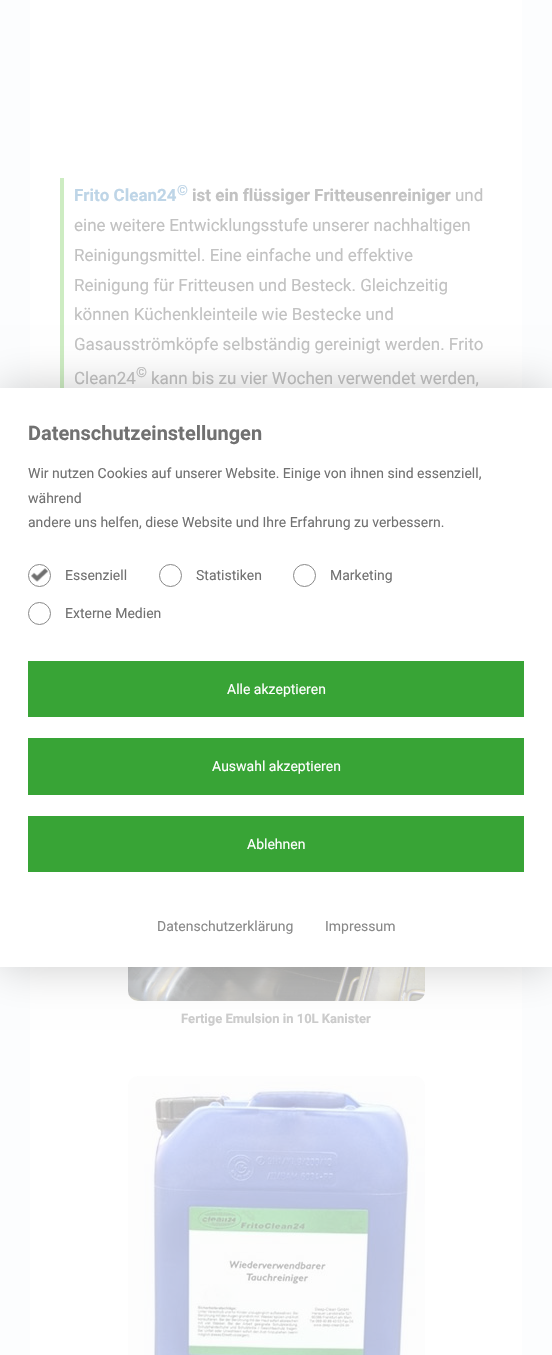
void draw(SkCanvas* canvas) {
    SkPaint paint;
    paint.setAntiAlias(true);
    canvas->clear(0xFFFCFDFE);
    paint.setColor(0xFFFFFFFF);
    canvas->drawRect(SkRect::MakeXYWH(30, 0, 492, 1355), paint);
    paint.setColor(0xFFCDECC2);
    canvas->drawRect(SkRect::MakeXYWH(60, 178, 4, 210), paint);
    SkFont font1(fontMgr->matchFamilyStyle("Roboto", SkFontStyle::Bold()), 17);
    font1.setSubpixel(true);
    paint.setColor(0xFFBED5E7);
    canvas->drawString("Frito Clean24", 74, 201, font1, paint);
    SkFont font2(fontMgr->matchFamilyStyle("Roboto", SkFontStyle::Bold()), 14);
    font2.setSubpixel(true);
    canvas->drawString("©", 177, 195, font2, paint);
    paint.setColor(0xFFC2C2C2);
    canvas->drawString("ist ein flüssiger Fritteusenreiniger", 192, 201, font1, paint);
    SkFont font3(fontMgr->matchFamilyStyle("Roboto", SkFontStyle::Normal()), 17);
    font3.setSubpixel(true);
    canvas->drawString("und", 455, 201, font3, paint);
    canvas->drawString("eine weitere Entwicklungsstufe unserer nachhaltigen", 74, 231, font3, paint);
    canvas->drawString("Reinigungsmittel. Eine einfache und effektive", 74, 261, font3, paint);
    canvas->drawString("Reinigung für Fritteusen und Besteck. Gleichzeitig", 74, 291, font3, paint);
    canvas->drawString("können Küchenkleinteile wie Bestecke und", 74, 320, font3, paint);
    canvas->drawString("Gasausströmköpfe selbständig gereinigt werden. Frito", 74, 350, font3, paint);
    canvas->drawString("Clean24", 74, 384, font3, paint);
    SkFont font4(fontMgr->matchFamilyStyle("Roboto", SkFontStyle::Normal()), 14);
    font4.setSubpixel(true);
    canvas->drawString("©", 136, 377, font4, paint);
    canvas->drawString("kann bis zu vier Wochen verwendet werden,", 151, 384, font3, paint);
    canvas->drawImageRect(SkImages::DeferredFromEncodedData(SkData::MakeFromFileName("img1.png")), SkRect::MakeXYWH(128, 967, 297, 34), SkSamplingOptions());
    SkFont font5(fontMgr->matchFamilyStyle("Roboto", SkFontStyle::Bold()), 13);
    font5.setSubpixel(true);
    paint.setColor(0xFFCCCCCC);
    canvas->drawString("Fertige Emulsion in 10L Kanister", 181, 1023, font5, paint);
    canvas->drawImageRect(SkImages::DeferredFromEncodedData(SkData::MakeFromFileName("img2.png")), SkRect::MakeXYWH(128, 1076, 297, 279), SkSamplingOptions());
    paint.setColor(0x33000000);
    paint.setMaskFilter(SkMaskFilter::MakeBlur(kNormal_SkBlurStyle, 21));
    canvas->drawRect(SkRect::MakeXYWH(0, 388, 552, 579), paint);
    paint.setMaskFilter(nullptr);
    paint.setColor(0xFFFFFFFF);
    canvas->drawRect(SkRect::MakeXYWH(0, 388, 552, 579), paint);
    SkFont font6(fontMgr->matchFamilyStyle("Roboto", SkFontStyle::Bold()), 20);
    font6.setSubpixel(true);
    paint.setColor(0xFF717171);
    canvas->drawString("Datenschutzeinstellungen", 28, 440, font6, paint);
    canvas->drawString("Wir nutzen Cookies auf unserer Website. Einige von ihnen sind essenziell,", 28, 478, font4, paint);
    canvas->drawString("während", 28, 503, font4, paint);
    canvas->drawString("andere uns helfen, diese Website und Ihre Erfahrung zu verbessern.", 28, 527, font4, paint);
    paint.setStyle(SkPaint::kStroke_Style);
    paint.setStrokeWidth(1);
    paint.setColor(0xFF888888);
    canvas->drawCircle(39.5f, 575.5f, 11, paint);
    canvas->drawImageRect(SkImages::DeferredFromEncodedData(SkData::MakeFromFileName("img3.png")), SkRect::MakeXYWH(31, 568, 18, 14), SkSamplingOptions());
    paint.setStyle(SkPaint::kFill_Style);
    paint.setColor(0xFF717171);
    canvas->drawString("Essenziell", 65, 580, font4, paint);
    paint.setStyle(SkPaint::kStroke_Style);
    paint.setColor(0xFF888888);
    canvas->drawCircle(170.5f, 575.5f, 11, paint);
    paint.setStyle(SkPaint::kFill_Style);
    paint.setColor(0xFF717171);
    canvas->drawString("Statistiken", 196, 580, font4, paint);
    paint.setStyle(SkPaint::kStroke_Style);
    paint.setColor(0xFF888888);
    canvas->drawCircle(304.5f, 575.5f, 11, paint);
    paint.setStyle(SkPaint::kFill_Style);
    paint.setColor(0xFF717171);
    canvas->drawString("Marketing", 330, 580, font4, paint);
    paint.setStyle(SkPaint::kStroke_Style);
    paint.setColor(0xFF888888);
    canvas->drawCircle(39.5f, 613.5f, 11, paint);
    paint.setStyle(SkPaint::kFill_Style);
    paint.setColor(0xFF717171);
    canvas->drawString("Externe Medien", 65, 618, font4, paint);
    paint.setColor(0xFF38A436);
    canvas->drawRect(SkRect::MakeXYWH(28, 661, 496, 56), paint);
    paint.setColor(0xFFFFFFFF);
    canvas->drawString("Alle akzeptieren", 227, 694, font4, paint);
    paint.setColor(0xFF38A436);
    canvas->drawRect(SkRect::MakeXYWH(28, 738, 496, 57), paint);
    paint.setColor(0xFFFFFFFF);
    canvas->drawString("Auswahl akzeptieren", 212, 771, font4, paint);
    paint.setColor(0xFF38A436);
    canvas->drawRect(SkRect::MakeXYWH(28, 816, 496, 56), paint);
    paint.setColor(0xFFFFFFFF);
    canvas->drawString("Ablehnen", 247, 849, font4, paint);
    paint.setColor(0xFF888888);
    canvas->drawString("Datenschutzerklärung", 157, 931, font4, paint);
    canvas->drawString("Impressum", 325, 931, font4, paint);
}
